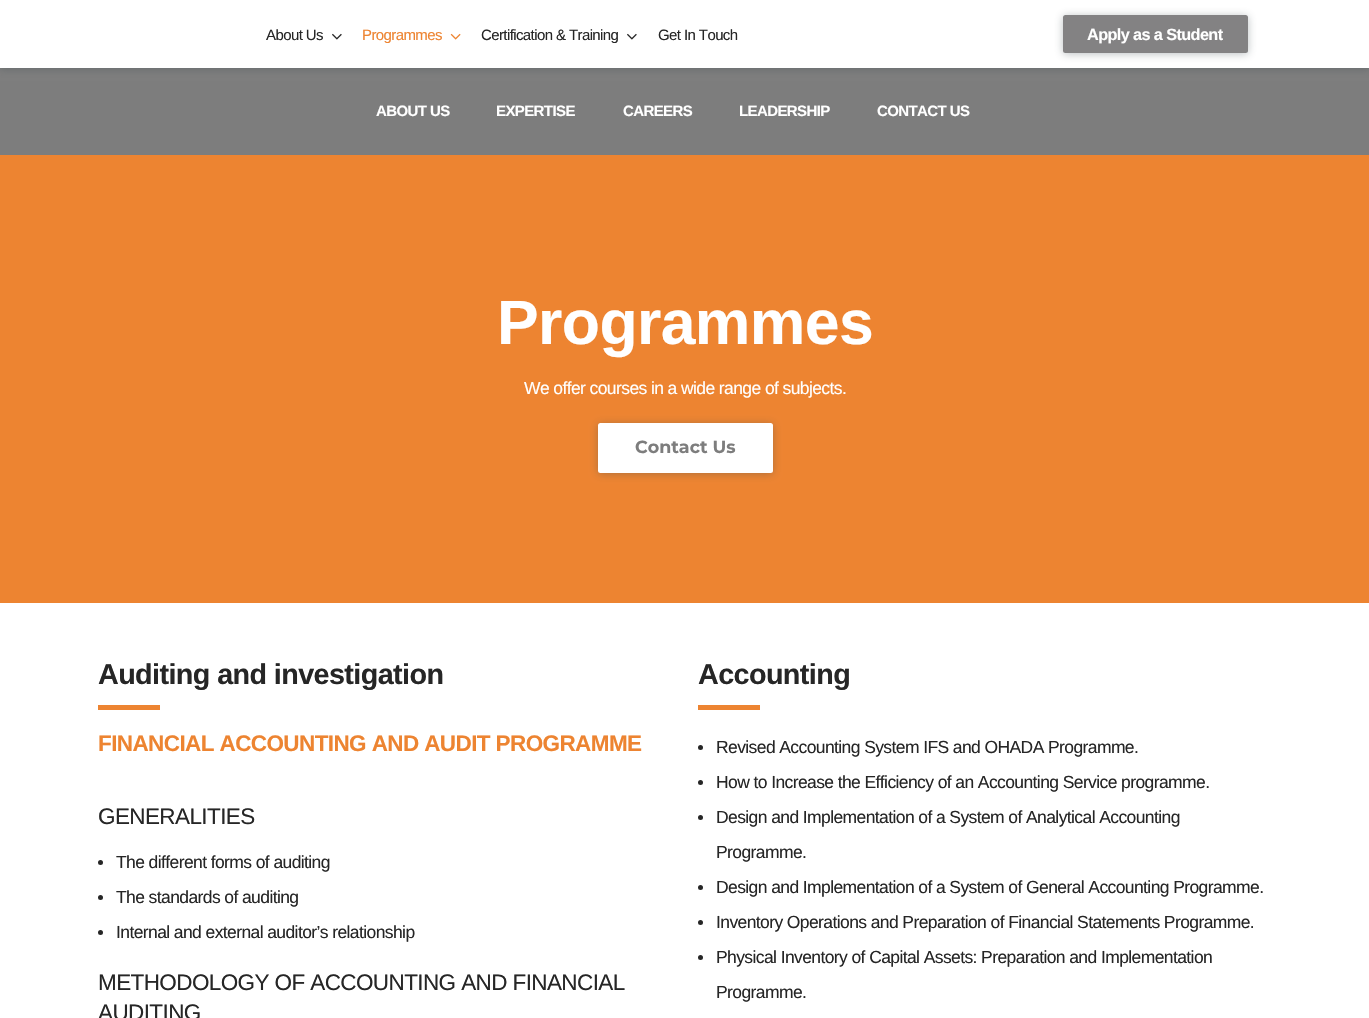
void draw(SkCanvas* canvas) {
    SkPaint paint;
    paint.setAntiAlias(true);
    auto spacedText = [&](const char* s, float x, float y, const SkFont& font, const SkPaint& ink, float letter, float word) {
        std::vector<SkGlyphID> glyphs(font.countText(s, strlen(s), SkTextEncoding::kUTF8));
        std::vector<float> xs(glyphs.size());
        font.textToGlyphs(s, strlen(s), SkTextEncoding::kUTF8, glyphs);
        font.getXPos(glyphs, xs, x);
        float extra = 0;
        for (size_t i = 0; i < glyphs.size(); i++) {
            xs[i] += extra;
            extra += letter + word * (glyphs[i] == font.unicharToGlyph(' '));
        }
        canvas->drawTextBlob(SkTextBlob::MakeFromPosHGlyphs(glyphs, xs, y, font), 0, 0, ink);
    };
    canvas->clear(0xFFFFFFFF);
    paint.setColor(0xFF7D7D7D);
    canvas->drawRect(SkRect::MakeXYWH(0, 68, 1369, 87), paint);
    paint.setColor(0x5939494C);
    paint.setMaskFilter(SkMaskFilter::MakeBlur(kNormal_SkBlurStyle, 4));
    canvas->drawRect(SkRect::MakeXYWH(0, 1, 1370, 68), paint);
    paint.setMaskFilter(nullptr);
    paint.setColor(0xFFFFFFFF);
    canvas->drawRect(SkRect::MakeXYWH(0, 0, 1369, 68), paint);
    SkFont font1(fontMgr->matchFamilyStyle("Liberation Sans", SkFontStyle::Normal()), 15);
    font1.setSubpixel(true);
    paint.setColor(0xFF262626);
    spacedText("About Us", 266, 40, font1, paint, -0.6f, 0);
    canvas->drawImageRect(SkImages::DeferredFromEncodedData(SkData::MakeFromFileName("img1.png")), SkRect::MakeXYWH(332, 33, 10, 7), SkSamplingOptions());
    paint.setColor(0xFFED8431);
    spacedText("Programmes", 362, 40, font1, paint, -0.6f, 0);
    canvas->drawImageRect(SkImages::DeferredFromEncodedData(SkData::MakeFromFileName("img2.png")), SkRect::MakeXYWH(450, 33, 11, 7), SkSamplingOptions());
    paint.setColor(0xFF262626);
    spacedText("Certification & Training", 481, 40, font1, paint, -0.6f, 0);
    canvas->drawImageRect(SkImages::DeferredFromEncodedData(SkData::MakeFromFileName("img1.png")), SkRect::MakeXYWH(627, 33, 10, 7), SkSamplingOptions());
    spacedText("Get In Touch", 658, 40, font1, paint, -0.6f, 0);
    paint.setColor(0x5939494C);
    paint.setMaskFilter(SkMaskFilter::MakeBlur(kNormal_SkBlurStyle, 4));
    canvas->drawRoundRect(SkRect::MakeXYWH(1063, 16, 185, 38), 2.5f, 2.5f, paint);
    paint.setMaskFilter(nullptr);
    paint.setColor(0xFF838283);
    canvas->drawRoundRect(SkRect::MakeXYWH(1063, 15, 185, 38), 2.5f, 2.5f, paint);
    SkFont font2(fontMgr->matchFamilyStyle("Liberation Sans", SkFontStyle::Bold()), 16.25f);
    font2.setSubpixel(true);
    paint.setColor(0xFFFFFFFF);
    spacedText("Apply as a Student", 1087, 40, font2, paint, -0.6f, 0);
    SkFont font3(fontMgr->matchFamilyStyle("Liberation Sans", SkFontStyle::Bold()), 15);
    font3.setSubpixel(true);
    spacedText("ABOUT US", 376, 116, font3, paint, -0.6f, 0);
    spacedText("EXPERTISE", 496, 116, font3, paint, -0.6f, 0);
    spacedText("CAREERS", 623, 116, font3, paint, -0.6f, 0);
    spacedText("LEADERSHIP", 739, 116, font3, paint, -0.6f, 0);
    spacedText("CONTACT US", 877, 116, font3, paint, -0.6f, 0);
    paint.setColor(0xFFED8431);
    canvas->drawRect(SkRect::MakeXYWH(0, 155, 1369, 448), paint);
    SkFont font4(fontMgr->matchFamilyStyle("Liberation Sans", SkFontStyle::Bold()), 62.5f);
    font4.setSubpixel(true);
    paint.setColor(0xFFFFFFFF);
    spacedText("Programmes", 497, 344, font4, paint, -0.6f, 0);
    SkFont font5(fontMgr->matchFamilyStyle("Liberation Sans", SkFontStyle::Normal()), 17.5f);
    font5.setSubpixel(true);
    spacedText("We offer courses in a wide range of subjects.", 524, 394, font5, paint, -0.6f, 0);
    paint.setColor(0x5939494C);
    paint.setMaskFilter(SkMaskFilter::MakeBlur(kNormal_SkBlurStyle, 4));
    canvas->drawRoundRect(SkRect::MakeXYWH(598, 424, 175, 50), 2.5f, 2.5f, paint);
    paint.setMaskFilter(nullptr);
    paint.setColor(0xFFFFFFFF);
    canvas->drawRoundRect(SkRect::MakeXYWH(598, 423, 175, 50), 2.5f, 2.5f, paint);
    SkFont font6(fontMgr->matchFamilyStyle("Montserrat", SkFontStyle::Bold()), 17.5f);
    font6.setSubpixel(true);
    paint.setColor(0xFF7D7D7D);
    canvas->drawString("Contact Us", 635, 453, font6, paint);
    SkFont font7(fontMgr->matchFamilyStyle("Liberation Sans", SkFontStyle::Bold()), 28.75f);
    font7.setSubpixel(true);
    paint.setColor(0xFF262626);
    spacedText("Auditing and investigation", 98, 684, font7, paint, -0.6f, 0);
    paint.setColor(0xFFED8431);
    canvas->drawRect(SkRect::MakeXYWH(98, 705, 62, 5), paint);
    SkFont font8(fontMgr->matchFamilyStyle("Liberation Sans", SkFontStyle::Bold()), 22.5f);
    font8.setSubpixel(true);
    spacedText("FINANCIAL ACCOUNTING AND AUDIT PROGRAMME", 98, 751, font8, paint, -0.6f, 0);
    SkFont font9(fontMgr->matchFamilyStyle("Liberation Sans", SkFontStyle::Normal()), 22.5f);
    font9.setSubpixel(true);
    paint.setColor(0xFF262626);
    spacedText("GENERALITIES", 98, 824, font9, paint, -0.6f, 0);
    canvas->drawCircle(100.5f, 862.5f, 2.5f, paint);
    spacedText("The different forms of auditing", 116, 868, font5, paint, -0.6f, 0);
    canvas->drawCircle(100.5f, 897.5f, 2.5f, paint);
    spacedText("The standards of auditing", 116, 903, font5, paint, -0.6f, 0);
    canvas->drawCircle(100.5f, 932.5f, 2.5f, paint);
    spacedText("Internal and external auditor’s relationship", 116, 938, font5, paint, -0.6f, 0);
    spacedText("METHODOLOGY OF ACCOUNTING AND FINANCIAL", 98, 990, font9, paint, -0.6f, 0);
    spacedText("AUDITING", 98, 1020, font9, paint, -0.6f, 0);
    spacedText("Accounting", 698, 684, font7, paint, -0.6f, 0);
    paint.setColor(0xFFED8431);
    canvas->drawRect(SkRect::MakeXYWH(698, 705, 62, 5), paint);
    paint.setColor(0xFF262626);
    canvas->drawCircle(700.5f, 747.5f, 2.5f, paint);
    spacedText("Revised Accounting System IFS and OHADA Programme.", 716, 753, font5, paint, -0.6f, 0);
    canvas->drawCircle(700.5f, 782.5f, 2.5f, paint);
    spacedText("How to Increase the Efficiency of an Accounting Service programme.", 716, 788, font5, paint, -0.6f, 0);
    canvas->drawCircle(700.5f, 817.5f, 2.5f, paint);
    spacedText("Design and Implementation of a System of Analytical Accounting", 716, 823, font5, paint, -0.6f, 0);
    spacedText("Programme.", 716, 858, font5, paint, -0.6f, 0);
    canvas->drawCircle(700.5f, 887.5f, 2.5f, paint);
    spacedText("Design and Implementation of a System of General Accounting Programme.", 716, 893, font5, paint, -0.6f, 0);
    canvas->drawCircle(700.5f, 922.5f, 2.5f, paint);
    spacedText("Inventory Operations and Preparation of Financial Statements Programme.", 716, 928, font5, paint, -0.6f, 0);
    canvas->drawCircle(700.5f, 957.5f, 2.5f, paint);
    spacedText("Physical Inventory of Capital Assets: Preparation and Implementation", 716, 963, font5, paint, -0.6f, 0);
    spacedText("Programme.", 716, 998, font5, paint, -0.6f, 0);
}
